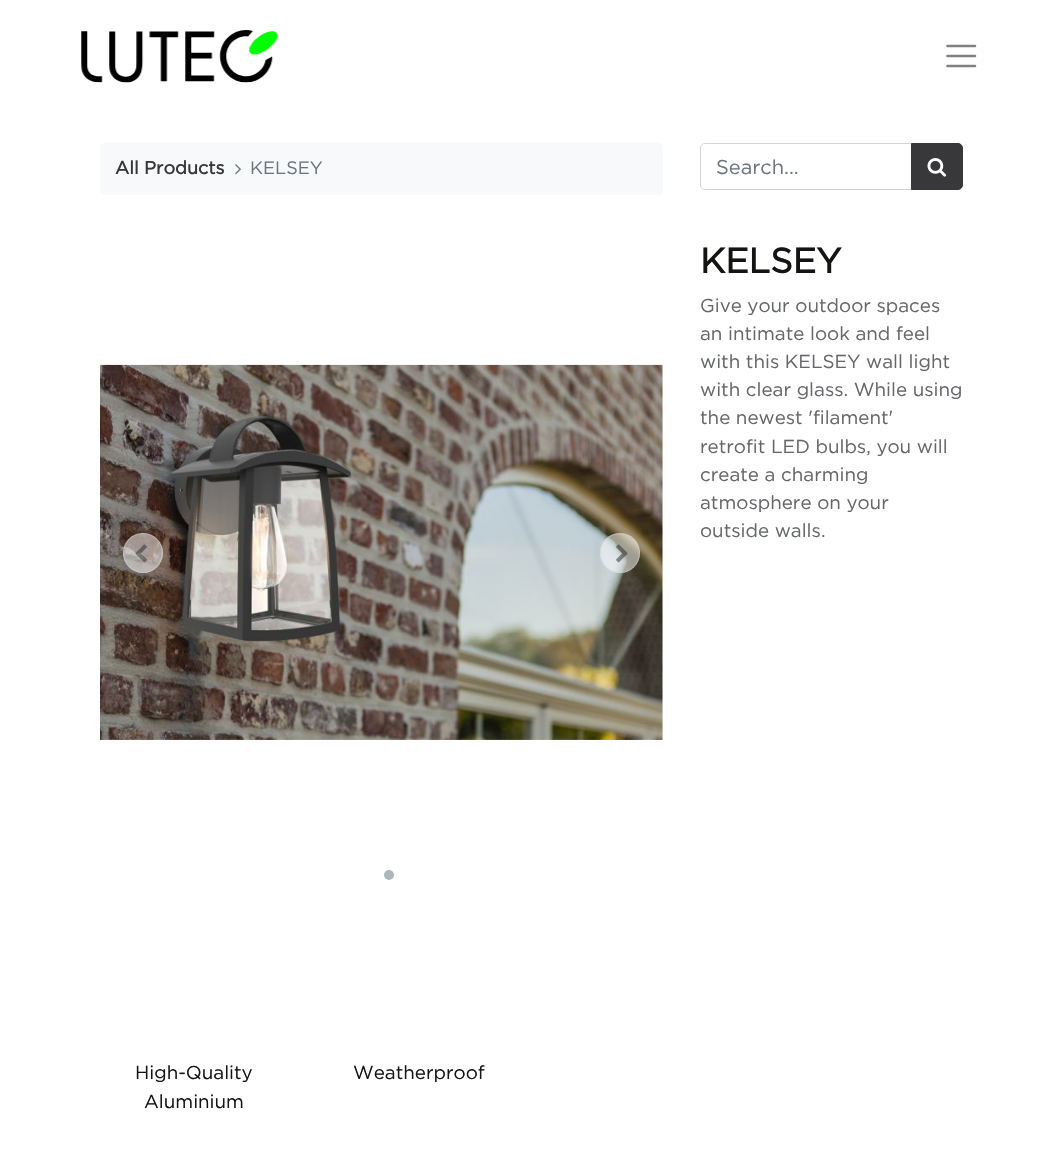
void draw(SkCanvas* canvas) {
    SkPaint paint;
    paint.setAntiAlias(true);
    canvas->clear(0xFFFFFFFF);
    canvas->drawImageRect(SkImages::DeferredFromEncodedData(SkData::MakeFromFileName("img1.png")), SkRect::MakeXYWH(81, 30, 197, 53), SkSamplingOptions());
    paint.setStyle(SkPaint::kStroke_Style);
    paint.setStrokeWidth(2.5f);
    paint.setStrokeCap(SkPaint::kRound_Cap);
    paint.setColor(0xFF808080);
    canvas->drawPath(SkPathBuilder().moveTo(947.5f, 46).lineTo(975, 46).moveTo(947.5f, 56).lineTo(975, 56).moveTo(947.5f, 66).lineTo(975, 66).detach(), paint);
    paint.setStyle(SkPaint::kFill_Style);
    paint.setColor(0xFFF8F9FA);
    canvas->drawRoundRect(SkRect::MakeXYWH(100, 143, 563, 52), 5, 5, paint);
    SkFont font1(fontMgr->matchFamilyStyle("Gotham", SkFontStyle::Bold()), 18);
    font1.setSubpixel(true);
    paint.setColor(0xFF38383B);
    canvas->drawString("All Products", 115, 174, font1, paint);
    canvas->drawImageRect(SkImages::DeferredFromEncodedData(SkData::MakeFromFileName("img2.png")), SkRect::MakeXYWH(235, 164, 6, 11), SkSamplingOptions());
    SkFont font2(fontMgr->matchFamilyStyle("Gotham", SkFontStyle::Normal()), 18);
    font2.setSubpixel(true);
    paint.setColor(0xFF6C757D);
    canvas->drawString("KELSEY", 250, 174, font2, paint);
    paint.setStyle(SkPaint::kStroke_Style);
    paint.setStrokeWidth(1);
    paint.setStrokeCap(SkPaint::kButt_Cap);
    paint.setColor(0xFFCED4DA);
    canvas->drawPath(SkPathBuilder().moveTo(705, 143.5f).lineTo(912.5f, 143.5f).lineTo(912.5f, 189.5f).lineTo(705, 189.5f).cubicTo(702.5f, 189.5f, 700.5f, 187.5f, 700.5f, 185).lineTo(700.5f, 148).cubicTo(700.5f, 145.5f, 702.5f, 143.5f, 705, 143.5f).close().detach(), paint);
    SkFont font3(fontMgr->matchFamilyStyle("Gotham", SkFontStyle::Normal()), 20);
    font3.setSubpixel(true);
    paint.setStyle(SkPaint::kFill_Style);
    paint.setColor(0xFF6C757D);
    canvas->drawString("Search...", 716, 174, font3, paint);
    paint.setColor(0xFF38383B);
    canvas->drawPath(SkPathBuilder().moveTo(911.5f, 143.5f).lineTo(958, 143.5f).cubicTo(960.5f, 143.5f, 962.5f, 145.5f, 962.5f, 148).lineTo(962.5f, 185).cubicTo(962.5f, 187.5f, 960.5f, 189.5f, 958, 189.5f).lineTo(911.5f, 189.5f).close().detach(), paint);
    paint.setStyle(SkPaint::kStroke_Style);
    canvas->drawPath(SkPathBuilder().moveTo(911.5f, 143.5f).lineTo(958, 143.5f).cubicTo(960.5f, 143.5f, 962.5f, 145.5f, 962.5f, 148).lineTo(962.5f, 185).cubicTo(962.5f, 187.5f, 960.5f, 189.5f, 958, 189.5f).lineTo(911.5f, 189.5f).close().detach(), paint);
    canvas->drawImageRect(SkImages::DeferredFromEncodedData(SkData::MakeFromFileName("img3.png")), SkRect::MakeXYWH(927, 158, 20, 19), SkSamplingOptions());
    canvas->drawImageRect(SkImages::DeferredFromEncodedData(SkData::MakeFromFileName("img4.png")), SkRect::MakeXYWH(100, 364, 563, 376), SkSamplingOptions());
    paint.setStyle(SkPaint::kFill_Style);
    paint.setColor(0x80FFFFFF);
    canvas->drawCircle(143, 553, 20, paint);
    paint.setStyle(SkPaint::kStroke_Style);
    paint.setColor(0x80CED4DA);
    canvas->drawCircle(143, 553, 19.5f, paint);
    canvas->drawImageRect(SkImages::DeferredFromEncodedData(SkData::MakeFromFileName("img5.png")), SkRect::MakeXYWH(135, 544, 12, 19), SkSamplingOptions());
    paint.setStyle(SkPaint::kFill_Style);
    paint.setColor(0x80FFFFFF);
    canvas->drawCircle(620, 553, 20, paint);
    paint.setStyle(SkPaint::kStroke_Style);
    paint.setColor(0x80CED4DA);
    canvas->drawCircle(620, 553, 19.5f, paint);
    canvas->drawImageRect(SkImages::DeferredFromEncodedData(SkData::MakeFromFileName("img6.png")), SkRect::MakeXYWH(616, 544, 12, 19), SkSamplingOptions());
    paint.setStyle(SkPaint::kFill_Style);
    paint.setColor(0xFFADB5BD);
    canvas->drawCircle(389, 875, 5, paint);
    SkFont font4(fontMgr->matchFamilyStyle("Gotham", SkFontStyle::Bold()), 35);
    font4.setSubpixel(true);
    paint.setColor(0xFF141412);
    canvas->drawString("KELSEY", 700, 273, font4, paint);
    SkFont font5(fontMgr->matchFamilyStyle("Gotham", SkFontStyle::Normal()), 18.75f);
    font5.setSubpixel(true);
    paint.setColor(0xFF646669);
    canvas->drawString("Give your outdoor spaces", 700, 312, font5, paint);
    canvas->drawString("an intimate look and feel", 700, 340, font5, paint);
    canvas->drawString("with this KELSEY wall light", 700, 368, font5, paint);
    canvas->drawString("with clear glass. While using", 700, 396, font5, paint);
    canvas->drawString("the newest 'filament'", 700, 424, font5, paint);
    canvas->drawString("retrofit LED bulbs, you will", 700, 453, font5, paint);
    canvas->drawString("create a charming", 700, 481, font5, paint);
    canvas->drawString("atmosphere on your", 700, 509, font5, paint);
    canvas->drawString("outside walls.", 700, 537, font5, paint);
    paint.setColor(0xFF141412);
    canvas->drawString("High-Quality", 135, 1079, font5, paint);
    canvas->drawString("Aluminium", 144, 1108, font5, paint);
    canvas->drawString("Weatherproof", 353, 1079, font5, paint);
}
